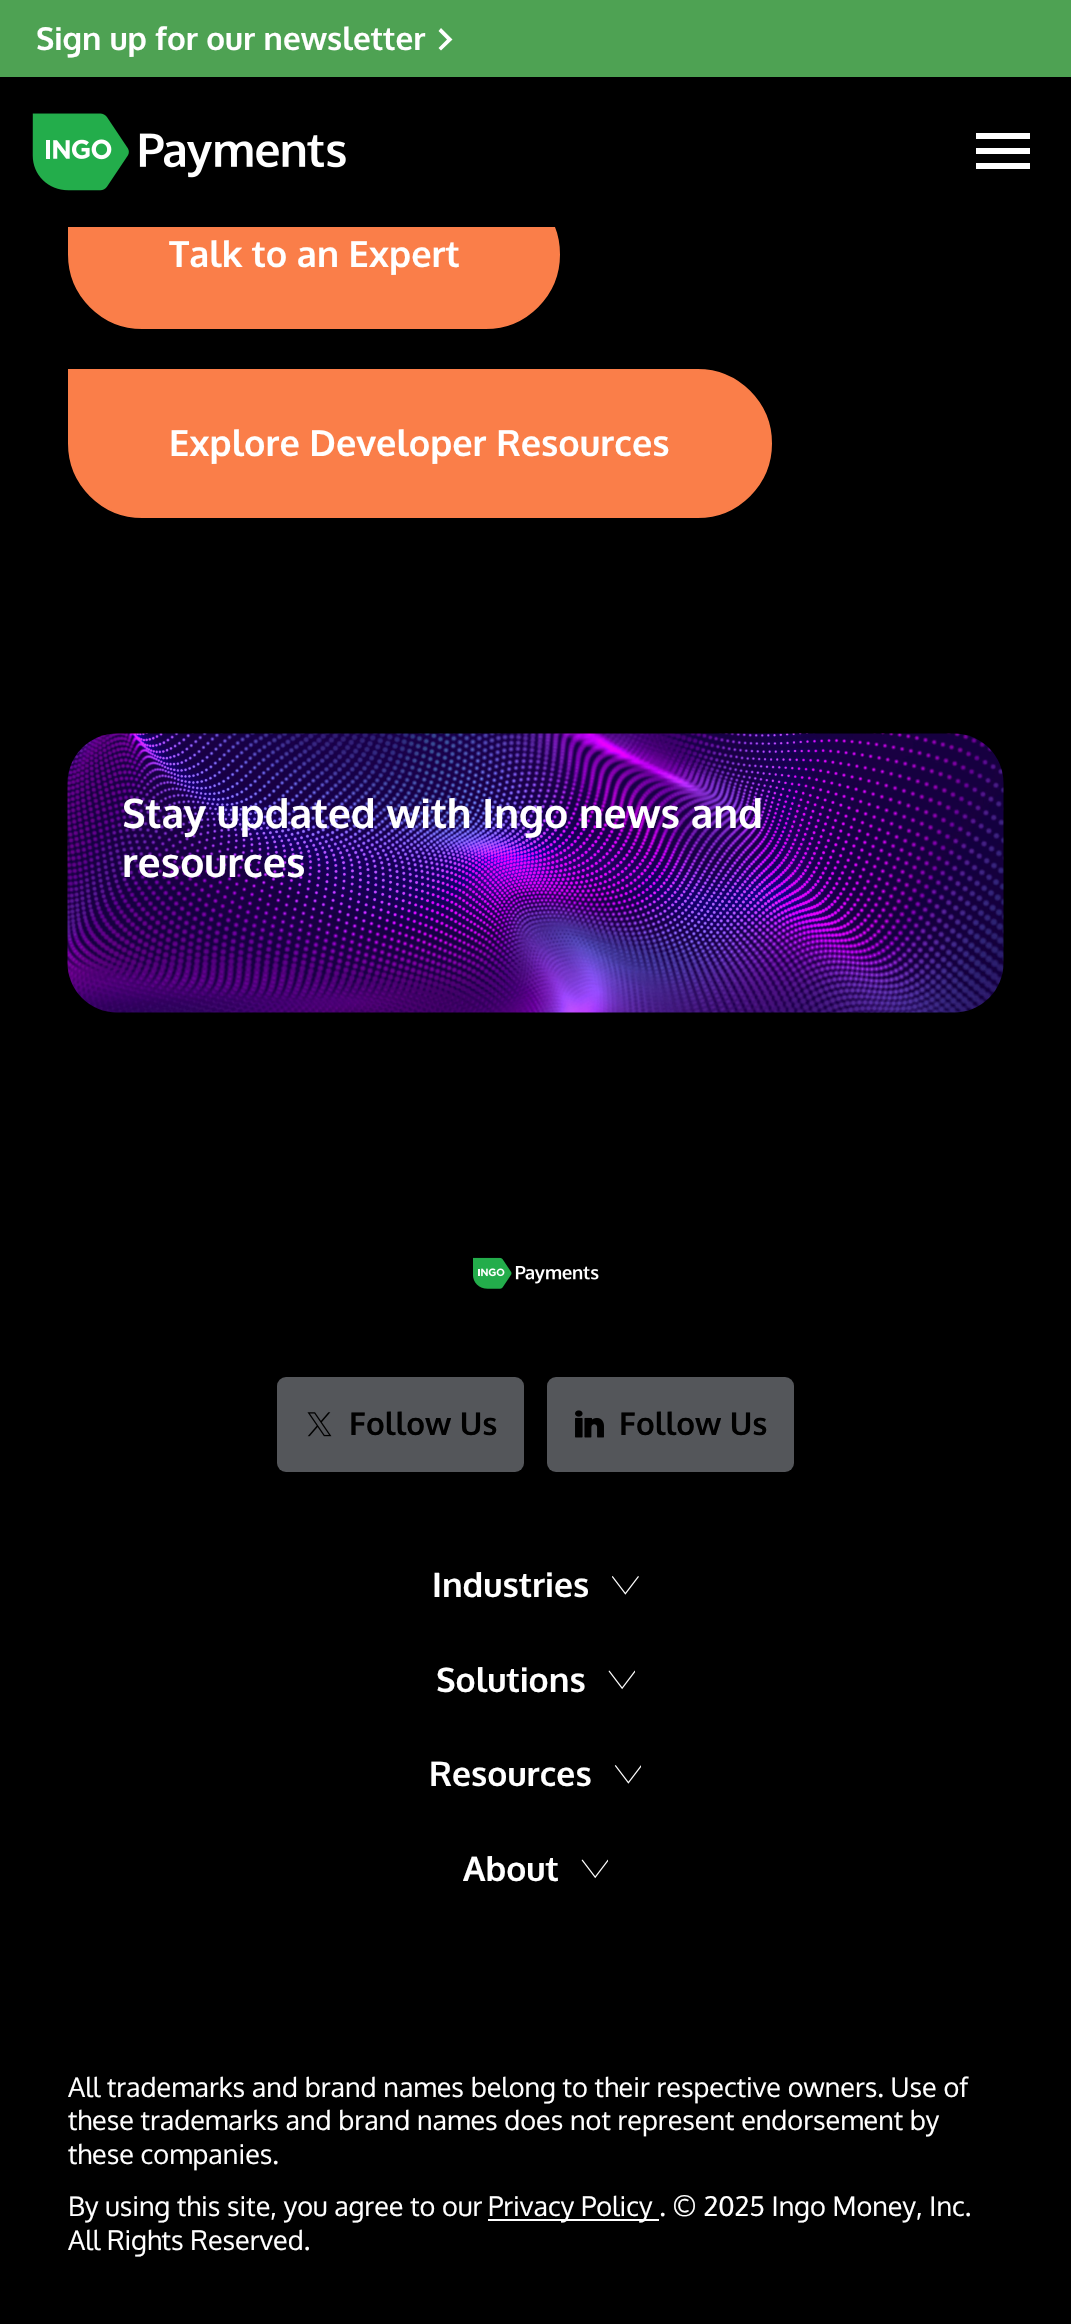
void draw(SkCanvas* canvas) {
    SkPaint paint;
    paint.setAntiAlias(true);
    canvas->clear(0xFF000000);
    paint.setColor(0xFFFA7E49);
    canvas->drawPath(SkPathBuilder().moveTo(69, 181).lineTo(485.5f, 181).cubicTo(526, 181, 559, 214, 559, 254.5f).cubicTo(559, 295, 526, 328, 485.5f, 328).lineTo(142.5f, 328).cubicTo(102, 328, 69, 295, 69, 254.5f).close().detach(), paint);
    paint.setStyle(SkPaint::kStroke_Style);
    paint.setStrokeWidth(2);
    canvas->drawPath(SkPathBuilder().moveTo(69, 181).lineTo(485.5f, 181).cubicTo(526, 181, 559, 214, 559, 254.5f).cubicTo(559, 295, 526, 328, 485.5f, 328).lineTo(142.5f, 328).cubicTo(102, 328, 69, 295, 69, 254.5f).close().detach(), paint);
    paint.setStyle(SkPaint::kFill_Style);
    paint.setColor(0xFF000000);
    canvas->drawRect(SkRect::MakeXYWH(68, 180, 487, 47), paint);
    paint.setColor(0xFF4EA253);
    canvas->drawRect(SkRect::MakeXYWH(0, 0, 1071, 77), paint);
    SkFont font1(fontMgr->matchFamilyStyle("Oxygen", SkFontStyle::Bold()), 31.5f);
    font1.setSubpixel(true);
    paint.setColor(0xFFFFFFFF);
    canvas->drawString("Sign up for our newsletter", 36, 50, font1, paint);
    canvas->drawPath(SkPathBuilder().moveTo(438.5f, 48).lineTo(447, 39.5f).lineTo(438.5f, 31).lineTo(441, 28).lineTo(452.5f, 39.5f).lineTo(441, 50.5f).close().detach(), paint);
    canvas->drawImageRect(SkImages::DeferredFromEncodedData(SkData::MakeFromFileName("img1.png")), SkRect::MakeXYWH(32, 113, 314, 78), SkSamplingOptions());
    canvas->drawPath(SkPathBuilder().moveTo(976, 169).lineTo(976, 163).lineTo(1030, 163).lineTo(1030, 169).close().moveTo(976, 154).lineTo(976, 148).lineTo(1030, 148).lineTo(1030, 154).close().moveTo(976, 139).lineTo(976, 133).lineTo(1030, 133).lineTo(1030, 139).close().detach(), paint);
    SkFont font2(fontMgr->matchFamilyStyle("Oxygen", SkFontStyle::Bold()), 36);
    font2.setSubpixel(true);
    canvas->drawString("Talk to an Expert", 169, 267, font2, paint);
    paint.setColor(0xFFFA7E49);
    canvas->drawPath(SkPathBuilder().moveTo(69, 370).lineTo(697.5f, 370).cubicTo(738, 370, 771, 403, 771, 443.5f).cubicTo(771, 484, 738, 517, 697.5f, 517).lineTo(142.5f, 517).cubicTo(102, 517, 69, 484, 69, 443.5f).close().detach(), paint);
    paint.setStyle(SkPaint::kStroke_Style);
    canvas->drawPath(SkPathBuilder().moveTo(69, 370).lineTo(697.5f, 370).cubicTo(738, 370, 771, 403, 771, 443.5f).cubicTo(771, 484, 738, 517, 697.5f, 517).lineTo(142.5f, 517).cubicTo(102, 517, 69, 484, 69, 443.5f).close().detach(), paint);
    paint.setStyle(SkPaint::kFill_Style);
    paint.setColor(0xFFFFFFFF);
    canvas->drawString("Explore Developer Resources", 169, 456, font2, paint);
    canvas->drawImageRect(SkImages::DeferredFromEncodedData(SkData::MakeFromFileName("img2.png")), SkRect::MakeXYWH(67, 733, 937, 280), SkSamplingOptions());
    SkFont font3(fontMgr->matchFamilyStyle("Oxygen", SkFontStyle::Bold()), 40.5f);
    font3.setSubpixel(true);
    canvas->drawString("Stay updated with Ingo news and", 122, 828, font3, paint);
    canvas->drawString("resources", 122, 877, font3, paint);
    canvas->drawImageRect(SkImages::DeferredFromEncodedData(SkData::MakeFromFileName("img3.png")), SkRect::MakeXYWH(473, 1257, 126, 32), SkSamplingOptions());
    paint.setColor(0xFF54565A);
    canvas->drawRoundRect(SkRect::MakeXYWH(277, 1377, 247, 95), 9, 9, paint);
    canvas->drawImageRect(SkImages::DeferredFromEncodedData(SkData::MakeFromFileName("img4.png")), SkRect::MakeXYWH(307, 1412, 25, 25), SkSamplingOptions());
    paint.setColor(0xFF000000);
    canvas->drawString("Follow Us", 349, 1435, font1, paint);
    paint.setColor(0xFF54565A);
    canvas->drawRoundRect(SkRect::MakeXYWH(547, 1377, 247, 95), 9, 9, paint);
    canvas->drawImageRect(SkImages::DeferredFromEncodedData(SkData::MakeFromFileName("img5.png")), SkRect::MakeXYWH(575, 1410, 29, 28), SkSamplingOptions());
    paint.setColor(0xFF000000);
    canvas->drawString("Follow Us", 619, 1435, font1, paint);
    SkFont font4(fontMgr->matchFamilyStyle("Oxygen", SkFontStyle::Bold()), 33.75f);
    font4.setSubpixel(true);
    paint.setColor(0xFFFFFFFF);
    canvas->drawString("Industries", 432, 1597, font4, paint);
    canvas->drawImageRect(SkImages::DeferredFromEncodedData(SkData::MakeFromFileName("img6.png")), SkRect::MakeXYWH(612, 1576, 27, 19), SkSamplingOptions());
    canvas->drawString("Solutions", 436, 1692, font4, paint);
    canvas->drawImageRect(SkImages::DeferredFromEncodedData(SkData::MakeFromFileName("img7.png")), SkRect::MakeXYWH(608, 1670, 27, 20), SkSamplingOptions());
    canvas->drawString("Resources", 429, 1786, font4, paint);
    canvas->drawImageRect(SkImages::DeferredFromEncodedData(SkData::MakeFromFileName("img8.png")), SkRect::MakeXYWH(614, 1765, 27, 19), SkSamplingOptions());
    canvas->drawString("About", 463, 1881, font4, paint);
    canvas->drawImageRect(SkImages::DeferredFromEncodedData(SkData::MakeFromFileName("img9.png")), SkRect::MakeXYWH(581, 1859, 27, 20), SkSamplingOptions());
    SkFont font5(fontMgr->matchFamilyStyle("Oxygen", SkFontStyle::Normal()), 27);
    font5.setSubpixel(true);
    canvas->drawString("All trademarks and brand names belong to their respective owners. Use of", 68, 2097, font5, paint);
    canvas->drawString("these trademarks and brand names does not represent endorsement by", 68, 2130, font5, paint);
    canvas->drawString("these companies.", 68, 2164, font5, paint);
    canvas->drawString("By using this site, you agree to our", 68, 2216, font5, paint);
    canvas->drawRect(SkRect::MakeXYWH(488, 2219, 171, 2), paint);
    canvas->drawString("Privacy Policy . © 2025 Ingo Money, Inc.", 488, 2216, font5, paint);
    canvas->drawString("All Rights Reserved.", 68, 2250, font5, paint);
}
